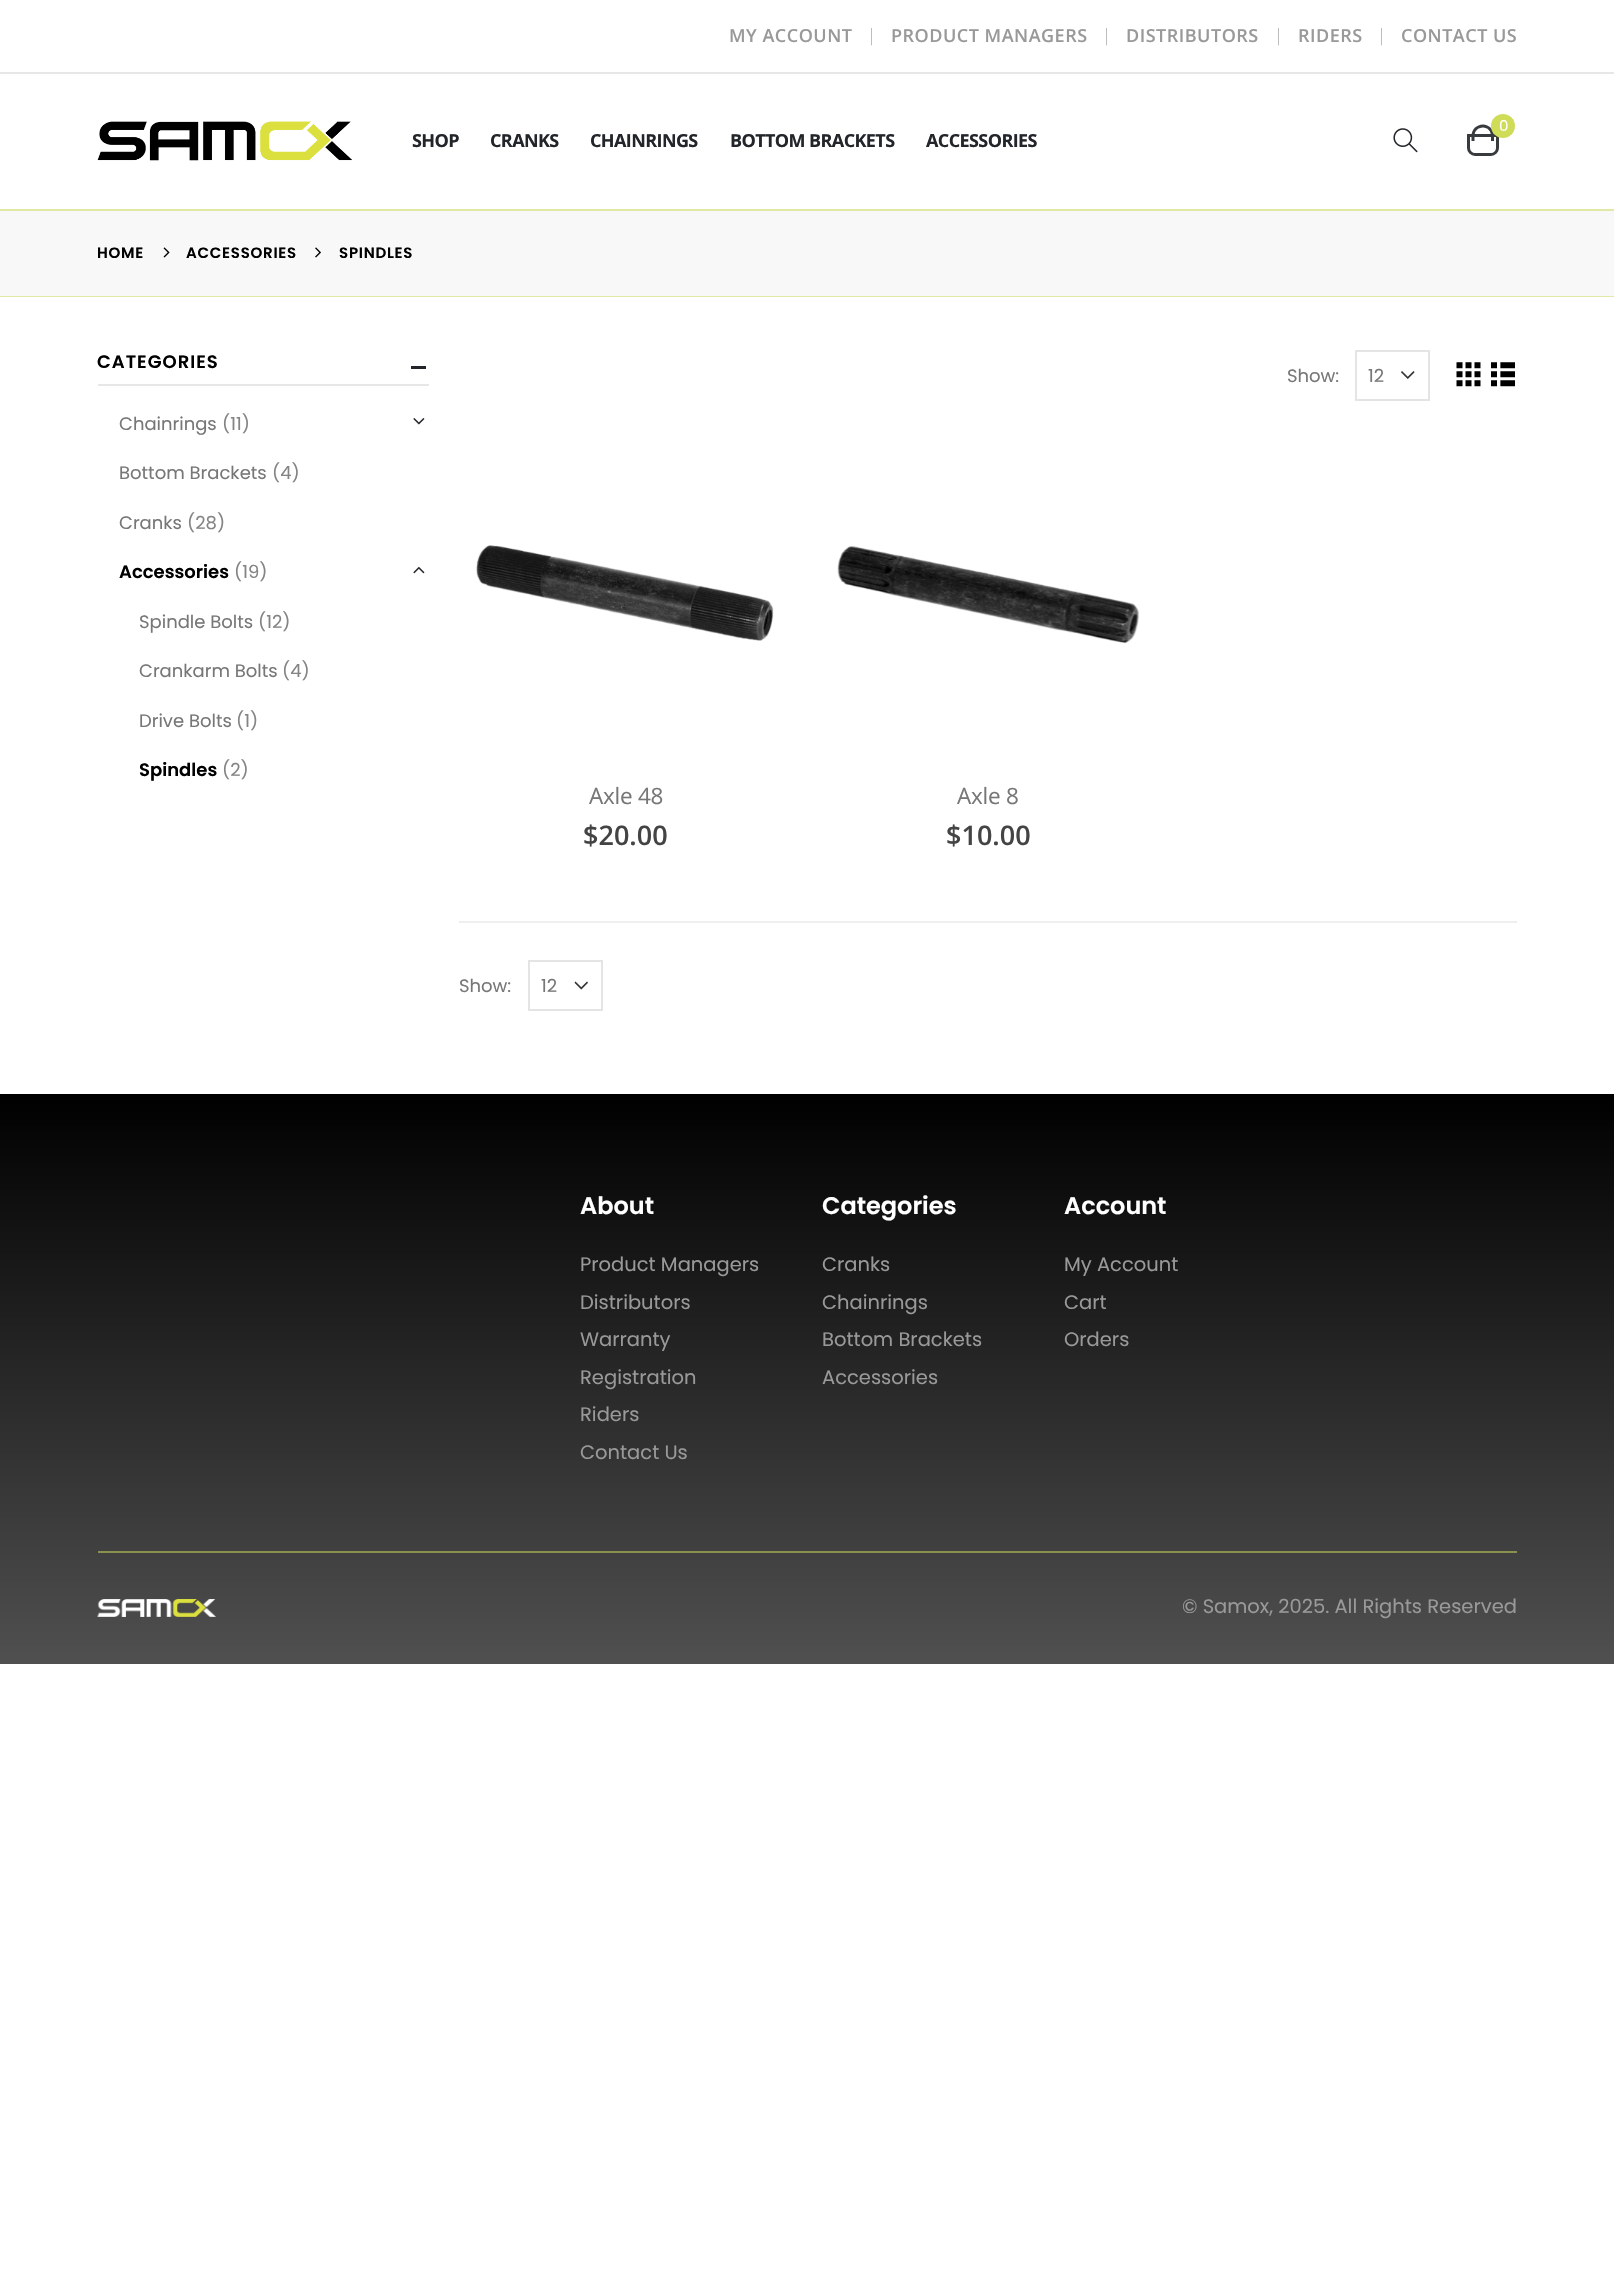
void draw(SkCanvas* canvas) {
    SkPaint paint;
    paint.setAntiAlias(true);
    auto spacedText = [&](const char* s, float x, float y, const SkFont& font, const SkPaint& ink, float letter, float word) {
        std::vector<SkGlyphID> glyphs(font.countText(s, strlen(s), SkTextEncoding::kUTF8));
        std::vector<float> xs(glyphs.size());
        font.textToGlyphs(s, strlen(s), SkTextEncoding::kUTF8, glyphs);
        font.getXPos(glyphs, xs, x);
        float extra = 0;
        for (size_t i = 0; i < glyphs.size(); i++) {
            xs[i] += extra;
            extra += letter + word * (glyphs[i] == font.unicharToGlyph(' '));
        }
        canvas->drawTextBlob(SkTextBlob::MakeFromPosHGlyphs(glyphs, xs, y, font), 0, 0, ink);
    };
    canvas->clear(0xFFFFFFFF);
    paint.setColor(0xFFE7E7E7);
    canvas->drawRect(SkRect::MakeXYWH(0, 72, 1614, 2), paint);
    SkFont font1(fontMgr->matchFamilyStyle("Open Sans", SkFontStyle(600, SkFontStyle::kNormal_Width, SkFontStyle::kUpright_Slant)), 18);
    font1.setSubpixel(true);
    paint.setColor(0xFF999999);
    spacedText("MY ACCOUNT", 729, 42, font1, paint, 0.5f, 0);
    SkFont font2(fontMgr->matchFamilyStyle("Open Sans", SkFontStyle(300, SkFontStyle::kNormal_Width, SkFontStyle::kUpright_Slant)), 17);
    font2.setSubpixel(true);
    paint.setColor(0xFFADADAD);
    canvas->drawString("|", 867, 41, font2, paint);
    paint.setColor(0xFF999999);
    spacedText("PRODUCT MANAGERS", 891, 42, font1, paint, 0.5f, 0);
    paint.setColor(0xFFADADAD);
    canvas->drawString("|", 1102, 41, font2, paint);
    paint.setColor(0xFF999999);
    spacedText("DISTRIBUTORS", 1126, 42, font1, paint, 0.5f, 0);
    paint.setColor(0xFFADADAD);
    canvas->drawString("|", 1274, 41, font2, paint);
    paint.setColor(0xFF999999);
    spacedText("RIDERS", 1298, 42, font1, paint, 0.5f, 0);
    paint.setColor(0xFFADADAD);
    canvas->drawString("|", 1377, 41, font2, paint);
    paint.setColor(0xFF999999);
    spacedText("CONTACT US", 1401, 42, font1, paint, 0.5f, 0);
    paint.setStyle(SkPaint::kStroke_Style);
    paint.setStrokeWidth(3);
    paint.setColor(0xFF383B3E);
    canvas->drawPath(SkPathBuilder().moveTo(1468.5f, 135.5f).lineTo(1497.5f, 135.5f).lineTo(1497.5f, 148).cubicTo(1497.5f, 151.5f, 1494.5f, 154.5f, 1491, 154.5f).lineTo(1475, 154.5f).cubicTo(1471.5f, 154.5f, 1468.5f, 151.5f, 1468.5f, 148).close().detach(), paint);
    paint.setStyle(SkPaint::kFill_Style);
    canvas->drawPath(SkPathBuilder(SkPathFillType::kEvenOdd).moveTo(1483, 124.5f).cubicTo(1489, 124.5f, 1494, 129.5f, 1494, 136).lineTo(1494, 141).lineTo(1471.5f, 141).lineTo(1471.5f, 136).cubicTo(1471.5f, 129.5f, 1476.5f, 124.5f, 1483, 124.5f).close().moveTo(1483, 127.5f).cubicTo(1487.5f, 127.5f, 1491, 131, 1491, 136).lineTo(1491, 141).lineTo(1474.5f, 141).lineTo(1474.5f, 136).cubicTo(1474.5f, 131, 1478, 127.5f, 1483, 127.5f).close().detach(), paint);
    paint.setColor(0xFFCEDC58);
    canvas->drawCircle(1503, 126, 12, paint);
    SkFont font3(fontMgr->matchFamilyStyle("Poppins", SkFontStyle::Normal()), 15);
    font3.setSubpixel(true);
    paint.setColor(0xFFFFFFFF);
    canvas->drawString("0", 1499, 131, font3, paint);
    canvas->drawImageRect(SkImages::DeferredFromEncodedData(SkData::MakeFromFileName("img1.png")), SkRect::MakeXYWH(1393, 128, 25, 25), SkSamplingOptions());
    canvas->drawImageRect(SkImages::DeferredFromEncodedData(SkData::MakeFromFileName("img2.png")), SkRect::MakeXYWH(97, 121, 255, 40), SkSamplingOptions());
    SkFont font4(fontMgr->matchFamilyStyle("Open Sans", SkFontStyle::Bold()), 18);
    font4.setSubpixel(true);
    paint.setColor(0xFF222529);
    spacedText("SHOP", 412, 147, font4, paint, -0.6f, 0);
    spacedText("CRANKS", 490, 147, font4, paint, -0.6f, 0);
    spacedText("CHAINRINGS", 590, 147, font4, paint, -0.6f, 0);
    spacedText("BOTTOM BRACKETS", 730, 147, font4, paint, -0.6f, 0);
    spacedText("ACCESSORIES", 926, 147, font4, paint, -0.6f, 0);
    paint.setColor(0xFFF8F8F8);
    canvas->drawRect(SkRect::MakeXYWH(0, 211, 1614, 85), paint);
    paint.setColor(0xFFE2E9A5);
    canvas->drawRect(SkRect::MakeXYWH(0, 296, 1614, 1), paint);
    canvas->drawRect(SkRect::MakeXYWH(0, 209, 1614, 2), paint);
    SkFont font5(fontMgr->matchFamilyStyle("Poppins", SkFontStyle(600, SkFontStyle::kNormal_Width, SkFontStyle::kUpright_Slant)), 15);
    font5.setSubpixel(true);
    paint.setColor(0xFF000000);
    spacedText("HOME", 97, 258, font5, paint, 0.75f, 0);
    canvas->drawImageRect(SkImages::DeferredFromEncodedData(SkData::MakeFromFileName("img3.png")), SkRect::MakeXYWH(163, 247, 7, 11), SkSamplingOptions());
    spacedText("ACCESSORIES", 186, 258, font5, paint, 0.75f, 0);
    canvas->drawImageRect(SkImages::DeferredFromEncodedData(SkData::MakeFromFileName("img4.png")), SkRect::MakeXYWH(315, 247, 6, 11), SkSamplingOptions());
    spacedText("SPINDLES", 339, 258, font5, paint, 0.75f, 0);
    paint.setColor(0xFFE7E7E7);
    canvas->drawRect(SkRect::MakeXYWH(98, 384, 331, 2), paint);
    SkFont font6(fontMgr->matchFamilyStyle("Poppins", SkFontStyle(600, SkFontStyle::kNormal_Width, SkFontStyle::kUpright_Slant)), 18);
    font6.setSubpixel(true);
    paint.setColor(0xFF000000);
    spacedText("CATEGORIES", 97, 368, font6, paint, 1, 0);
    paint.setColor(0xFF222529);
    canvas->drawRect(SkRect::MakeXYWH(411, 366, 15, 3), paint);
    SkFont font7(fontMgr->matchFamilyStyle("Poppins", SkFontStyle::Normal()), 18);
    font7.setSubpixel(true);
    paint.setColor(0xFF777777);
    canvas->drawString("Chainrings", 119, 430, font7, paint);
    paint.setColor(0xFF848484);
    canvas->drawString("(11)", 222, 430, font7, paint);
    canvas->drawImageRect(SkImages::DeferredFromEncodedData(SkData::MakeFromFileName("img5.png")), SkRect::MakeXYWH(413, 418, 12, 7), SkSamplingOptions());
    paint.setColor(0xFF777777);
    canvas->drawString("Bottom Brackets", 119, 479, font7, paint);
    paint.setColor(0xFF848484);
    canvas->drawString("(4)", 272, 479, font7, paint);
    paint.setColor(0xFF777777);
    canvas->drawString("Cranks", 119, 529, font7, paint);
    paint.setColor(0xFF848484);
    canvas->drawString("(28)", 187, 529, font7, paint);
    paint.setColor(0xFF000000);
    canvas->drawString("Accessories", 119, 578, font6, paint);
    paint.setColor(0xFF848484);
    canvas->drawString("(19)", 234, 578, font7, paint);
    canvas->drawImageRect(SkImages::DeferredFromEncodedData(SkData::MakeFromFileName("img6.png")), SkRect::MakeXYWH(413, 566, 12, 8), SkSamplingOptions());
    paint.setColor(0xFF777777);
    canvas->drawString("Spindle Bolts", 139, 628, font7, paint);
    paint.setColor(0xFF848484);
    canvas->drawString("(12)", 258, 628, font7, paint);
    paint.setColor(0xFF777777);
    canvas->drawString("Crankarm Bolts", 139, 677, font7, paint);
    paint.setColor(0xFF848484);
    canvas->drawString("(4)", 282, 677, font7, paint);
    paint.setColor(0xFF777777);
    canvas->drawString("Drive Bolts", 139, 727, font7, paint);
    paint.setColor(0xFF848484);
    canvas->drawString("(1)", 236, 727, font7, paint);
    paint.setColor(0xFF000000);
    canvas->drawString("Spindles", 139, 776, font6, paint);
    paint.setColor(0xFF848484);
    canvas->drawString("(2)", 222, 776, font7, paint);
    paint.setColor(0xFF777777);
    canvas->drawString("Show:", 1287, 382, font7, paint);
    canvas->drawImageRect(SkImages::DeferredFromEncodedData(SkData::MakeFromFileName("img7.png")), SkRect::MakeXYWH(1401, 371, 14, 8), SkSamplingOptions());
    paint.setStyle(SkPaint::kStroke_Style);
    paint.setStrokeWidth(2);
    paint.setColor(0xFFE4E4E4);
    canvas->drawRect(SkRect::MakeXYWH(1356, 351, 73, 49), paint);
    paint.setStyle(SkPaint::kFill_Style);
    paint.setColor(0xFF777777);
    canvas->drawString("12", 1368, 382, font7, paint);
    canvas->drawImageRect(SkImages::DeferredFromEncodedData(SkData::MakeFromFileName("img8.png")), SkRect::MakeXYWH(1456, 362, 25, 25), SkSamplingOptions());
    canvas->drawImageRect(SkImages::DeferredFromEncodedData(SkData::MakeFromFileName("img9.png")), SkRect::MakeXYWH(1491, 362, 24, 25), SkSamplingOptions());
    canvas->drawImageRect(SkImages::DeferredFromEncodedData(SkData::MakeFromFileName("img10.png")), SkRect::MakeXYWH(476, 545, 298, 96), SkSamplingOptions());
    SkFont font8(fontMgr->matchFamilyStyle("Open Sans", SkFontStyle::Normal()), 22.5f);
    font8.setSubpixel(true);
    spacedText("Axle 48", 589, 804, font8, paint, -0.25f, 0);
    SkFont font9(fontMgr->matchFamilyStyle("Open Sans", SkFontStyle(600, SkFontStyle::kNormal_Width, SkFontStyle::kUpright_Slant)), 27);
    font9.setSubpixel(true);
    paint.setColor(0xFF444444);
    canvas->drawString("$20.00", 583, 845, font9, paint);
    canvas->drawImageRect(SkImages::DeferredFromEncodedData(SkData::MakeFromFileName("img11.png")), SkRect::MakeXYWH(837, 546, 302, 98), SkSamplingOptions());
    paint.setColor(0xFF777777);
    spacedText("Axle 8", 957, 804, font8, paint, -0.25f, 0);
    paint.setColor(0xFF444444);
    canvas->drawString("$10.00", 946, 845, font9, paint);
    paint.setColor(0xFFEFEFEF);
    canvas->drawRect(SkRect::MakeXYWH(459, 921, 1058, 2), paint);
    paint.setColor(0xFF777777);
    canvas->drawString("Show:", 459, 992, font7, paint);
    canvas->drawImageRect(SkImages::DeferredFromEncodedData(SkData::MakeFromFileName("img12.png")), SkRect::MakeXYWH(574, 981, 14, 9), SkSamplingOptions());
    paint.setStyle(SkPaint::kStroke_Style);
    paint.setColor(0xFFE4E4E4);
    canvas->drawRect(SkRect::MakeXYWH(529, 961, 73, 49), paint);
    paint.setStyle(SkPaint::kFill_Style);
    paint.setColor(0xFF777777);
    canvas->drawString("12", 541, 992, font7, paint);
    {
        const SkColor colors[] = {0xFF000000, 0xFF505050};
        const float stops[] = {0, 1};
        const SkPoint ends[] = {{807, 1094}, {807, 1664}};
        paint.setShader(SkGradientShader::MakeLinear(ends, colors, stops, 2, SkTileMode::kClamp));
        paint.setAlpha(255);
    }
    canvas->drawRect(SkRect::MakeXYWH(0, 1094, 1614, 570), paint);
    SkFont font10(fontMgr->matchFamilyStyle("Poppins", SkFontStyle(600, SkFontStyle::kNormal_Width, SkFontStyle::kUpright_Slant)), 24);
    font10.setSubpixel(true);
    paint.setShader(nullptr);
    paint.setColor(0xFFFFFFFF);
    canvas->drawString("About", 580, 1214, font10, paint);
    SkFont font11(fontMgr->matchFamilyStyle("Poppins", SkFontStyle::Normal()), 19.5f);
    font11.setSubpixel(true);
    paint.setColor(0xFF999999);
    canvas->drawString("Product Managers", 580, 1271, font11, paint);
    canvas->drawString("Distributors", 580, 1309, font11, paint);
    canvas->drawString("Warranty", 580, 1346, font11, paint);
    canvas->drawString("Registration", 580, 1384, font11, paint);
    canvas->drawString("Riders", 580, 1421, font11, paint);
    canvas->drawString("Contact Us", 580, 1459, font11, paint);
    paint.setColor(0xFFFFFFFF);
    canvas->drawString("Categories", 822, 1214, font10, paint);
    paint.setColor(0xFF999999);
    canvas->drawString("Cranks", 822, 1271, font11, paint);
    canvas->drawString("Chainrings", 822, 1309, font11, paint);
    canvas->drawString("Bottom Brackets", 822, 1346, font11, paint);
    canvas->drawString("Accessories", 822, 1384, font11, paint);
    paint.setColor(0xFFFFFFFF);
    canvas->drawString("Account", 1064, 1214, font10, paint);
    paint.setColor(0xFF999999);
    canvas->drawString("My Account", 1064, 1271, font11, paint);
    canvas->drawString("Cart", 1064, 1309, font11, paint);
    canvas->drawString("Orders", 1064, 1346, font11, paint);
    paint.setColor(0xFF8A914C);
    canvas->drawRect(SkRect::MakeXYWH(98, 1551, 1419, 2), paint);
    canvas->drawImageRect(SkImages::DeferredFromEncodedData(SkData::MakeFromFileName("img13.png")), SkRect::MakeXYWH(97, 1599, 119, 18), SkSamplingOptions());
    paint.setColor(0xFF999999);
    canvas->drawString("© Samox, 2025. All Rights Reserved", 1182, 1613, font11, paint);
}
